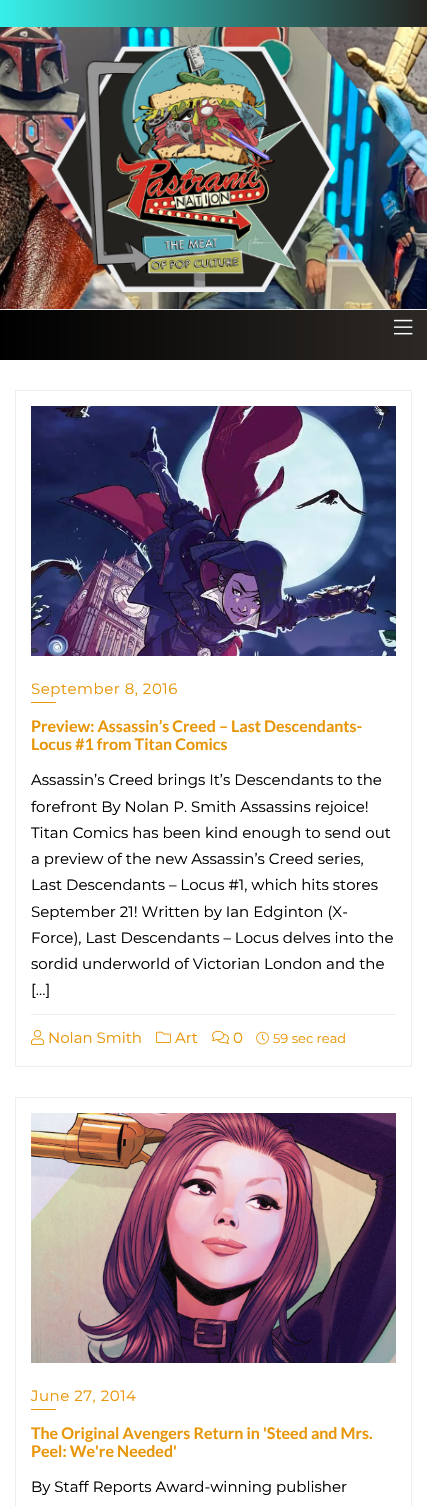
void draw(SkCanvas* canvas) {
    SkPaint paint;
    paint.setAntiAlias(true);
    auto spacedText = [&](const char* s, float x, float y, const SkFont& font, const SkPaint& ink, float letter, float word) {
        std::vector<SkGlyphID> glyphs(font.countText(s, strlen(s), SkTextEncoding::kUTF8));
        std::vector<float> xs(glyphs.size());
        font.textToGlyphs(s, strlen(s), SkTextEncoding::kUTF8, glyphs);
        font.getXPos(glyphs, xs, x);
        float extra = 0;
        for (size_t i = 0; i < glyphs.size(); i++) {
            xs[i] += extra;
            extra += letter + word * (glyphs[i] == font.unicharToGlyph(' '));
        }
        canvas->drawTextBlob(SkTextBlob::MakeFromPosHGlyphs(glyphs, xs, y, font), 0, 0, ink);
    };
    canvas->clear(0xFFFFFFFF);
    {
        const SkColor colors[] = {0xFF37EFE9, 0xFF262320};
        const float stops[] = {0, 1};
        const SkPoint ends[] = {{0, 13}, {427, 13}};
        paint.setShader(SkGradientShader::MakeLinear(ends, colors, stops, 2, SkTileMode::kClamp));
        paint.setAlpha(255);
    }
    canvas->drawRect(SkRect::MakeXYWH(0, 0, 427, 27), paint);
    canvas->drawImageRect(SkImages::DeferredFromEncodedData(SkData::MakeFromFileName("img1.png")), SkRect::MakeXYWH(0, 27, 427, 282), SkSamplingOptions());
    paint.setShader(nullptr);
    paint.setColor(0xFFEEEEEE);
    canvas->drawRect(SkRect::MakeXYWH(0, 309, 427, 1), paint);
    {
        const SkColor colors[] = {0xFF000000, 0xFF2C2825};
        const float stops[] = {0, 1};
        const SkPoint ends[] = {{0, 335}, {427, 335}};
        paint.setShader(SkGradientShader::MakeLinear(ends, colors, stops, 2, SkTileMode::kClamp));
        paint.setAlpha(255);
    }
    canvas->drawRect(SkRect::MakeXYWH(0, 310, 427, 50), paint);
    canvas->drawImageRect(SkImages::DeferredFromEncodedData(SkData::MakeFromFileName("img2.png")), SkRect::MakeXYWH(394, 319, 19, 16), SkSamplingOptions());
    paint.setStyle(SkPaint::kStroke_Style);
    paint.setStrokeWidth(1);
    paint.setShader(nullptr);
    paint.setColor(0xFFEEEEEE);
    canvas->drawRect(SkRect::MakeXYWH(15.5f, 390.5f, 396, 676), paint);
    canvas->drawImageRect(SkImages::DeferredFromEncodedData(SkData::MakeFromFileName("img3.png")), SkRect::MakeXYWH(31, 406, 365, 250), SkSamplingOptions());
    SkFont font1(fontMgr->matchFamilyStyle("Montserrat", SkFontStyle::Normal()), 15);
    font1.setSubpixel(true);
    paint.setStyle(SkPaint::kFill_Style);
    paint.setColor(0xFFE89609);
    spacedText("September 8, 2016", 31, 694, font1, paint, 0.5f, 0);
    canvas->drawRect(SkRect::MakeXYWH(31, 702, 25, 1), paint);
    SkFont font2(fontMgr->matchFamilyStyle("Lato", SkFontStyle::Bold()), 16);
    font2.setSubpixel(true);
    canvas->drawString("Preview: Assassin’s Creed – Last Descendants-", 31, 732, font2, paint);
    canvas->drawString("Locus #1 from Titan Comics", 31, 750, font2, paint);
    paint.setColor(0xFF000000);
    canvas->drawString("Assassin’s Creed brings It’s Descendants to the", 31, 785, font1, paint);
    canvas->drawString("forefront By Nolan P. Smith Assassins rejoice!", 31, 812, font1, paint);
    canvas->drawString("Titan Comics has been kind enough to send out", 31, 838, font1, paint);
    canvas->drawString("a preview of the new Assassin’s Creed series,", 31, 864, font1, paint);
    canvas->drawString("Last Descendants – Locus #1, which hits stores", 31, 890, font1, paint);
    canvas->drawString("September 21! Written by Ian Edginton (X-", 31, 917, font1, paint);
    canvas->drawString("Force), Last Descendants – Locus delves into the", 31, 943, font1, paint);
    canvas->drawString("sordid underworld of Victorian London and the", 31, 969, font1, paint);
    canvas->drawString("[…]", 31, 995, font1, paint);
    paint.setColor(0xFFEEEEEE);
    canvas->drawRect(SkRect::MakeXYWH(31, 1014, 365, 1), paint);
    canvas->drawImageRect(SkImages::DeferredFromEncodedData(SkData::MakeFromFileName("img4.png")), SkRect::MakeXYWH(31, 1029, 14, 16), SkSamplingOptions());
    paint.setColor(0xFFE89609);
    canvas->drawString("Nolan Smith", 48, 1043, font1, paint);
    canvas->drawImageRect(SkImages::DeferredFromEncodedData(SkData::MakeFromFileName("img5.png")), SkRect::MakeXYWH(156, 1031, 15, 12), SkSamplingOptions());
    canvas->drawString("Art", 175, 1043, font1, paint);
    canvas->drawImageRect(SkImages::DeferredFromEncodedData(SkData::MakeFromFileName("img6.png")), SkRect::MakeXYWH(212, 1030, 17, 14), SkSamplingOptions());
    canvas->drawString("0", 233, 1043, font1, paint);
    canvas->drawImageRect(SkImages::DeferredFromEncodedData(SkData::MakeFromFileName("img7.png")), SkRect::MakeXYWH(256, 1031, 13, 14), SkSamplingOptions());
    SkFont font3(fontMgr->matchFamilyStyle("Montserrat", SkFontStyle::Normal()), 13);
    font3.setSubpixel(true);
    canvas->drawString("59 sec read", 273, 1043, font3, paint);
    paint.setStyle(SkPaint::kStroke_Style);
    paint.setColor(0xFFEEEEEE);
    canvas->drawRect(SkRect::MakeXYWH(15.5f, 1097.5f, 396, 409), paint);
    canvas->drawImageRect(SkImages::DeferredFromEncodedData(SkData::MakeFromFileName("img8.png")), SkRect::MakeXYWH(31, 1113, 365, 250), SkSamplingOptions());
    paint.setStyle(SkPaint::kFill_Style);
    paint.setColor(0xFFE89609);
    spacedText("June 27, 2014", 31, 1401, font1, paint, 0.5f, 0);
    canvas->drawRect(SkRect::MakeXYWH(31, 1409, 25, 1), paint);
    canvas->drawString("The Original Avengers Return in 'Steed and Mrs.", 31, 1439, font2, paint);
    canvas->drawString("Peel: We're Needed'", 31, 1457, font2, paint);
    paint.setColor(0xFF000000);
    canvas->drawString("By Staff Reports Award-winning publisher", 31, 1492, font1, paint);
}
